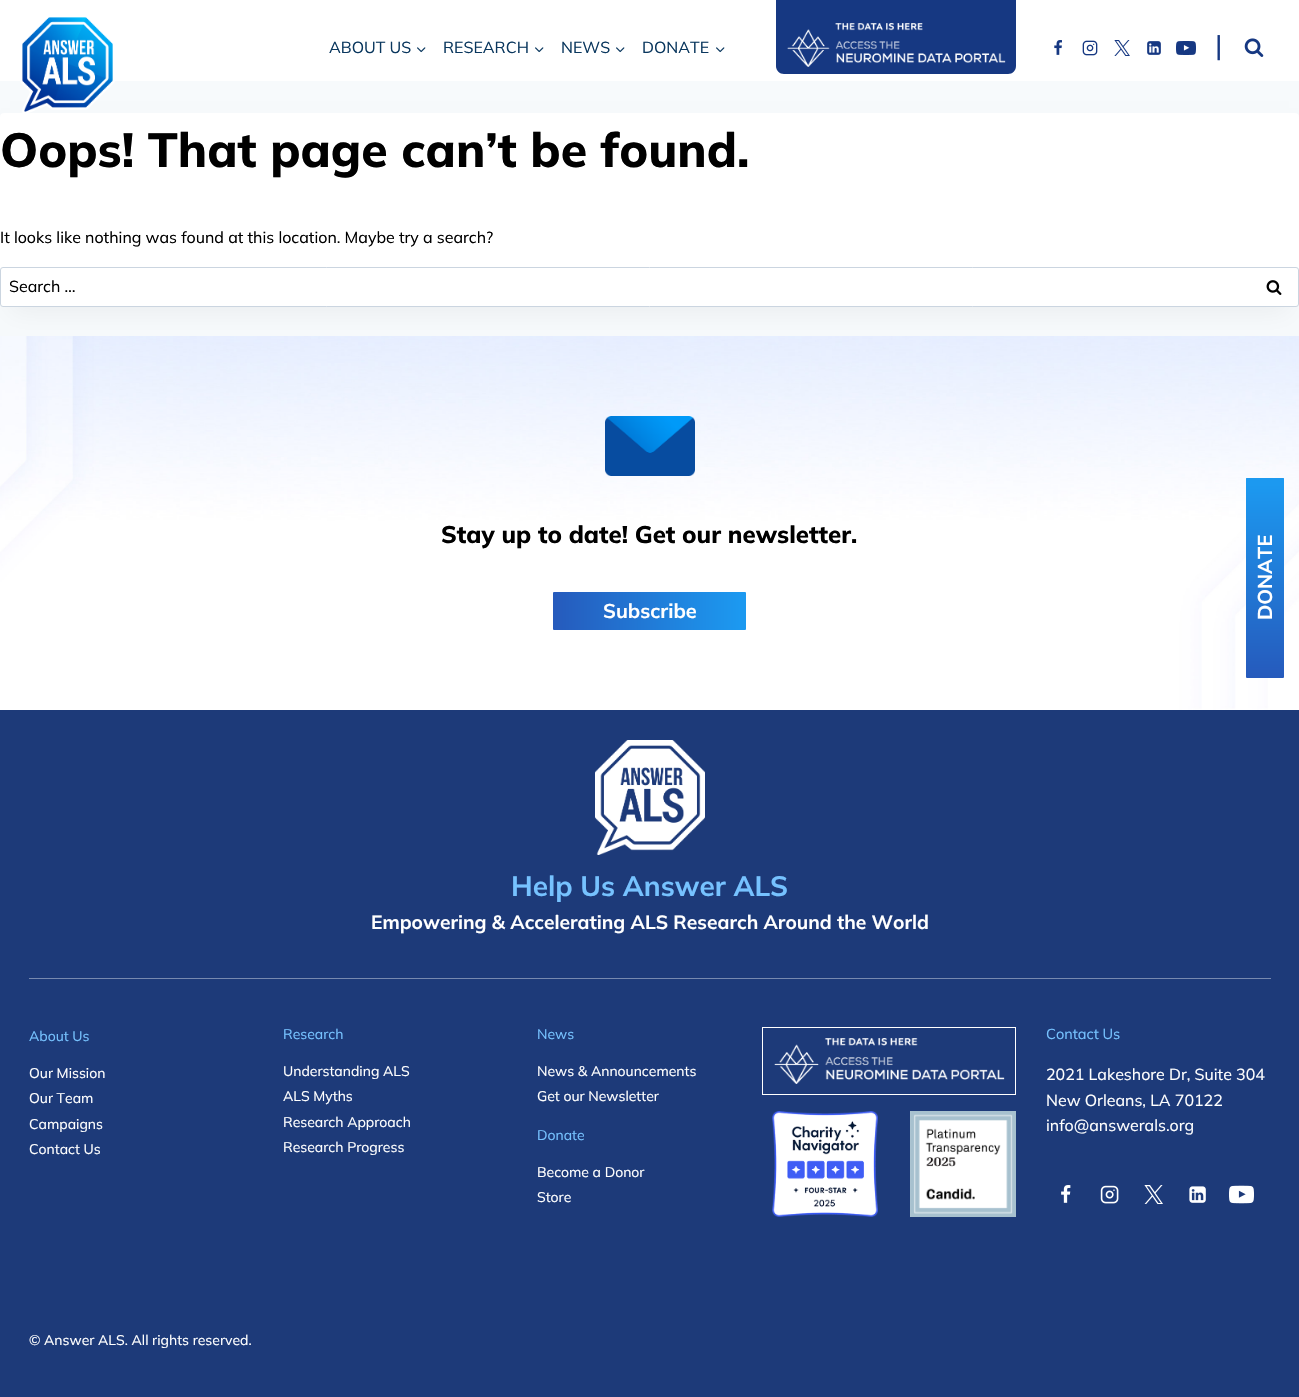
void draw(SkCanvas* canvas) {
    SkPaint paint;
    paint.setAntiAlias(true);
    canvas->clear(0xFFF7FAFC);
    paint.setColor(0xFFFFFFFF);
    canvas->drawRect(SkRect::MakeXYWH(0, 0, 1299, 81), paint);
    paint.setColor(0x0D000000);
    paint.setMaskFilter(SkMaskFilter::MakeBlur(kNormal_SkBlurStyle, 12.5f));
    canvas->drawRect(SkRect::MakeXYWH(10, 138, 1279, 174), paint);
    paint.setMaskFilter(nullptr);
    canvas->drawImageRect(SkImages::DeferredFromEncodedData(SkData::MakeFromFileName("img1.png")), SkRect::MakeXYWH(20, 17, 95, 96), SkSamplingOptions());
    SkFont font1(fontMgr->matchFamilyStyle("Mulish", SkFontStyle::Normal()), 16);
    font1.setSubpixel(true);
    paint.setColor(0xFF0A375E);
    canvas->drawString("ABOUT US", 329, 53, font1, paint);
    canvas->drawImageRect(SkImages::DeferredFromEncodedData(SkData::MakeFromFileName("img2.png")), SkRect::MakeXYWH(417, 47, 9, 6), SkSamplingOptions());
    canvas->drawString("RESEARCH", 443, 53, font1, paint);
    canvas->drawImageRect(SkImages::DeferredFromEncodedData(SkData::MakeFromFileName("img2.png")), SkRect::MakeXYWH(535, 47, 9, 6), SkSamplingOptions());
    canvas->drawString("NEWS", 561, 53, font1, paint);
    canvas->drawImageRect(SkImages::DeferredFromEncodedData(SkData::MakeFromFileName("img2.png")), SkRect::MakeXYWH(616, 47, 9, 6), SkSamplingOptions());
    canvas->drawString("DONATE", 642, 53, font1, paint);
    canvas->drawImageRect(SkImages::DeferredFromEncodedData(SkData::MakeFromFileName("img2.png")), SkRect::MakeXYWH(716, 47, 9, 6), SkSamplingOptions());
    paint.setColor(0xFF163882);
    canvas->drawPath(SkPathBuilder().moveTo(776, -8).lineTo(1016, -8).lineTo(1016, 66).cubicTo(1016, 70.5f, 1012.5f, 74, 1008, 74).lineTo(784, 74).cubicTo(779.5f, 74, 776, 70.5f, 776, 66).close().detach(), paint);
    canvas->drawImageRect(SkImages::DeferredFromEncodedData(SkData::MakeFromFileName("img3.png")), SkRect::MakeXYWH(787, 23, 219, 44), SkSamplingOptions());
    canvas->drawImageRect(SkImages::DeferredFromEncodedData(SkData::MakeFromFileName("img4.png")), SkRect::MakeXYWH(1054, 40, 8, 15), SkSamplingOptions());
    canvas->drawImageRect(SkImages::DeferredFromEncodedData(SkData::MakeFromFileName("img5.png")), SkRect::MakeXYWH(1082, 40, 16, 16), SkSamplingOptions());
    canvas->drawImageRect(SkImages::DeferredFromEncodedData(SkData::MakeFromFileName("img6.png")), SkRect::MakeXYWH(1114, 40, 16, 16), SkSamplingOptions());
    canvas->drawImageRect(SkImages::DeferredFromEncodedData(SkData::MakeFromFileName("img7.png")), SkRect::MakeXYWH(1147, 41, 14, 14), SkSamplingOptions());
    canvas->drawImageRect(SkImages::DeferredFromEncodedData(SkData::MakeFromFileName("img8.png")), SkRect::MakeXYWH(1176, 41, 20, 14), SkSamplingOptions());
    SkFont font2(fontMgr->matchFamilyStyle("Mulish", SkFontStyle::Normal()), 28);
    font2.setSubpixel(true);
    canvas->drawString("|", 1215, 55, font2, paint);
    canvas->drawImageRect(SkImages::DeferredFromEncodedData(SkData::MakeFromFileName("img9.png")), SkRect::MakeXYWH(1244, 38, 20, 19), SkSamplingOptions());
    paint.setColor(0xFFFFFFFF);
    canvas->drawRoundRect(SkRect::MakeXYWH(0, 113, 1299, 194), 4, 4, paint);
    SkFont font3(fontMgr->matchFamilyStyle("Mulish", SkFontStyle(800, SkFontStyle::kNormal_Width, SkFontStyle::kUpright_Slant)), 48);
    font3.setSubpixel(true);
    paint.setColor(0xFF000000);
    canvas->drawString("Oops! That page can’t be found.", 0, 167, font3, paint);
    canvas->drawString("It looks like nothing was found at this location. Maybe try a search?", 0, 243, font1, paint);
    paint.setColor(0xFFFFFFFF);
    canvas->drawRoundRect(SkRect::MakeXYWH(0.5f, 267.5f, 1298, 39), 2.5f, 2.5f, paint);
    paint.setStyle(SkPaint::kStroke_Style);
    paint.setStrokeWidth(1);
    paint.setColor(0xFFCBD5E0);
    canvas->drawRoundRect(SkRect::MakeXYWH(0.5f, 267.5f, 1298, 39), 2.5f, 2.5f, paint);
    paint.setStyle(SkPaint::kFill_Style);
    paint.setColor(0xFF000000);
    canvas->drawString("Search …", 9, 292, font1, paint);
    canvas->drawImageRect(SkImages::DeferredFromEncodedData(SkData::MakeFromFileName("img10.png")), SkRect::MakeXYWH(1266, 280, 16, 15), SkSamplingOptions());
    paint.setColor(0xFF1D3A79);
    canvas->drawRect(SkRect::MakeXYWH(0, 710, 1299, 687), paint);
    canvas->drawImageRect(SkImages::DeferredFromEncodedData(SkData::MakeFromFileName("img11.png")), SkRect::MakeXYWH(0, 336, 1299, 374), SkSamplingOptions());
    canvas->drawImageRect(SkImages::DeferredFromEncodedData(SkData::MakeFromFileName("img12.png")), SkRect::MakeXYWH(605, 416, 90, 60), SkSamplingOptions());
    SkFont font4(fontMgr->matchFamilyStyle("Mulish", SkFontStyle(800, SkFontStyle::kNormal_Width, SkFontStyle::kUpright_Slant)), 24);
    font4.setSubpixel(true);
    paint.setColor(0xFF000000);
    canvas->drawString("Stay up to date! Get our newsletter.", 441, 543, font4, paint);
    {
        const SkColor colors[] = {0xFF265ABC, 0xFF1C99F0};
        const float stops[] = {0, 0.97f};
        const SkPoint ends[] = {{553, 611}, {746, 611}};
        paint.setShader(SkGradientShader::MakeLinear(ends, colors, stops, 2, SkTileMode::kClamp));
        paint.setAlpha(255);
    }
    canvas->drawRoundRect(SkRect::MakeXYWH(553, 592, 193, 38), 1, 1, paint);
    SkFont font5(fontMgr->matchFamilyStyle("Mulish", SkFontStyle::Bold()), 20);
    font5.setSubpixel(true);
    paint.setShader(nullptr);
    paint.setColor(0xFFFFFFFF);
    canvas->drawString("Subscribe", 603, 618, font5, paint);
    canvas->drawImageRect(SkImages::DeferredFromEncodedData(SkData::MakeFromFileName("img13.png")), SkRect::MakeXYWH(595, 740, 110, 115), SkSamplingOptions());
    SkFont font6(fontMgr->matchFamilyStyle("Mulish", SkFontStyle::Bold()), 28);
    font6.setSubpixel(true);
    paint.setColor(0xFF76C2FF);
    canvas->drawString("Help Us Answer ALS", 511, 896, font6, paint);
    SkFont font7(fontMgr->matchFamilyStyle("Mulish", SkFontStyle::Bold()), 19.2f);
    font7.setSubpixel(true);
    paint.setColor(0xFFFFFFFF);
    canvas->drawString("Empowering & Accelerating ALS Research Around the World", 371, 929, font7, paint);
    paint.setColor(0xFF7789AF);
    canvas->drawRect(SkRect::MakeXYWH(29, 978, 1242, 1), paint);
    SkFont font8(fontMgr->matchFamilyStyle("Mulish", SkFontStyle::Normal()), 14);
    font8.setSubpixel(true);
    paint.setColor(0xFF76C2FF);
    canvas->drawString("About Us", 29, 1041, font8, paint);
    paint.setColor(0xFFFFFFFF);
    canvas->drawString("Our Mission", 29, 1078, font8, paint);
    canvas->drawString("Our Team", 29, 1103, font8, paint);
    canvas->drawString("Campaigns", 29, 1129, font8, paint);
    canvas->drawString("Contact Us", 29, 1154, font8, paint);
    paint.setColor(0xFF76C2FF);
    canvas->drawString("Research", 283, 1039, font8, paint);
    paint.setColor(0xFFFFFFFF);
    canvas->drawString("Understanding ALS", 283, 1076, font8, paint);
    canvas->drawString("ALS Myths", 283, 1101, font8, paint);
    canvas->drawString("Research Approach", 283, 1127, font8, paint);
    canvas->drawString("Research Progress", 283, 1152, font8, paint);
    paint.setColor(0xFF76C2FF);
    canvas->drawString("News", 537, 1039, font8, paint);
    paint.setColor(0xFFFFFFFF);
    canvas->drawString("News & Announcements", 537, 1076, font8, paint);
    canvas->drawString("Get our Newsletter", 537, 1101, font8, paint);
    paint.setColor(0xFF76C2FF);
    canvas->drawString("Donate", 537, 1140, font8, paint);
    paint.setColor(0xFFFFFFFF);
    canvas->drawString("Become a Donor", 537, 1177, font8, paint);
    canvas->drawString("Store", 537, 1202, font8, paint);
    paint.setStyle(SkPaint::kStroke_Style);
    canvas->drawRect(SkRect::MakeXYWH(762.5f, 1027.5f, 253, 67), paint);
    canvas->drawImageRect(SkImages::DeferredFromEncodedData(SkData::MakeFromFileName("img14.png")), SkRect::MakeXYWH(774, 1038, 231, 46), SkSamplingOptions());
    canvas->drawImageRect(SkImages::DeferredFromEncodedData(SkData::MakeFromFileName("img15.png")), SkRect::MakeXYWH(772, 1111, 106, 106), SkSamplingOptions());
    canvas->drawImageRect(SkImages::DeferredFromEncodedData(SkData::MakeFromFileName("img16.png")), SkRect::MakeXYWH(910, 1111, 106, 106), SkSamplingOptions());
    SkFont font9(fontMgr->matchFamilyStyle("Mulish", SkFontStyle::Normal()), 14.5f);
    font9.setSubpixel(true);
    paint.setStyle(SkPaint::kFill_Style);
    paint.setColor(0xFF76C2FF);
    canvas->drawString("Contact Us", 1046, 1039, font9, paint);
    paint.setColor(0xFFFFFFFF);
    canvas->drawString("2021 Lakeshore Dr, Suite 304", 1046, 1080, font1, paint);
    canvas->drawString("New Orleans, LA 70122", 1046, 1106, font1, paint);
    canvas->drawString("info@answerals.org", 1046, 1131, font1, paint);
    canvas->drawImageRect(SkImages::DeferredFromEncodedData(SkData::MakeFromFileName("img17.png")), SkRect::MakeXYWH(1061, 1185, 10, 18), SkSamplingOptions());
    canvas->drawImageRect(SkImages::DeferredFromEncodedData(SkData::MakeFromFileName("img18.png")), SkRect::MakeXYWH(1100, 1185, 19, 19), SkSamplingOptions());
    canvas->drawImageRect(SkImages::DeferredFromEncodedData(SkData::MakeFromFileName("img19.png")), SkRect::MakeXYWH(1144, 1185, 19, 19), SkSamplingOptions());
    canvas->drawImageRect(SkImages::DeferredFromEncodedData(SkData::MakeFromFileName("img20.png")), SkRect::MakeXYWH(1189, 1186, 17, 17), SkSamplingOptions());
    canvas->drawImageRect(SkImages::DeferredFromEncodedData(SkData::MakeFromFileName("img21.png")), SkRect::MakeXYWH(1229, 1185, 25, 19), SkSamplingOptions());
    canvas->drawString("© Answer ALS. All rights reserved.", 29, 1345, font8, paint);
    {
        const SkColor colors[] = {0xFF265ABC, 0xFF1C99F0};
        const float stops[] = {0, 0.97f};
        const SkPoint ends[] = {{1265, 678}, {1265, 478}};
        paint.setShader(SkGradientShader::MakeLinear(ends, colors, stops, 2, SkTileMode::kClamp));
        paint.setAlpha(255);
    }
    canvas->drawPath(SkPathBuilder().moveTo(1246, 677).lineTo(1246, 479).cubicTo(1246, 478, 1246, 478, 1247, 478).lineTo(1283, 478).cubicTo(1284, 478, 1284, 478, 1284, 479).lineTo(1284, 677).cubicTo(1284, 677, 1284, 678, 1283, 678).lineTo(1247, 678).cubicTo(1246, 678, 1246, 677, 1246, 677).close().detach(), paint);
    paint.setShader(nullptr);
    paint.setColor(0xFFFFFFFF);
    canvas->save();
    canvas->rotate(-90, 1272, 620);
    canvas->drawString("DONATE", 1272, 620, font5, paint);
    canvas->restore();
}
